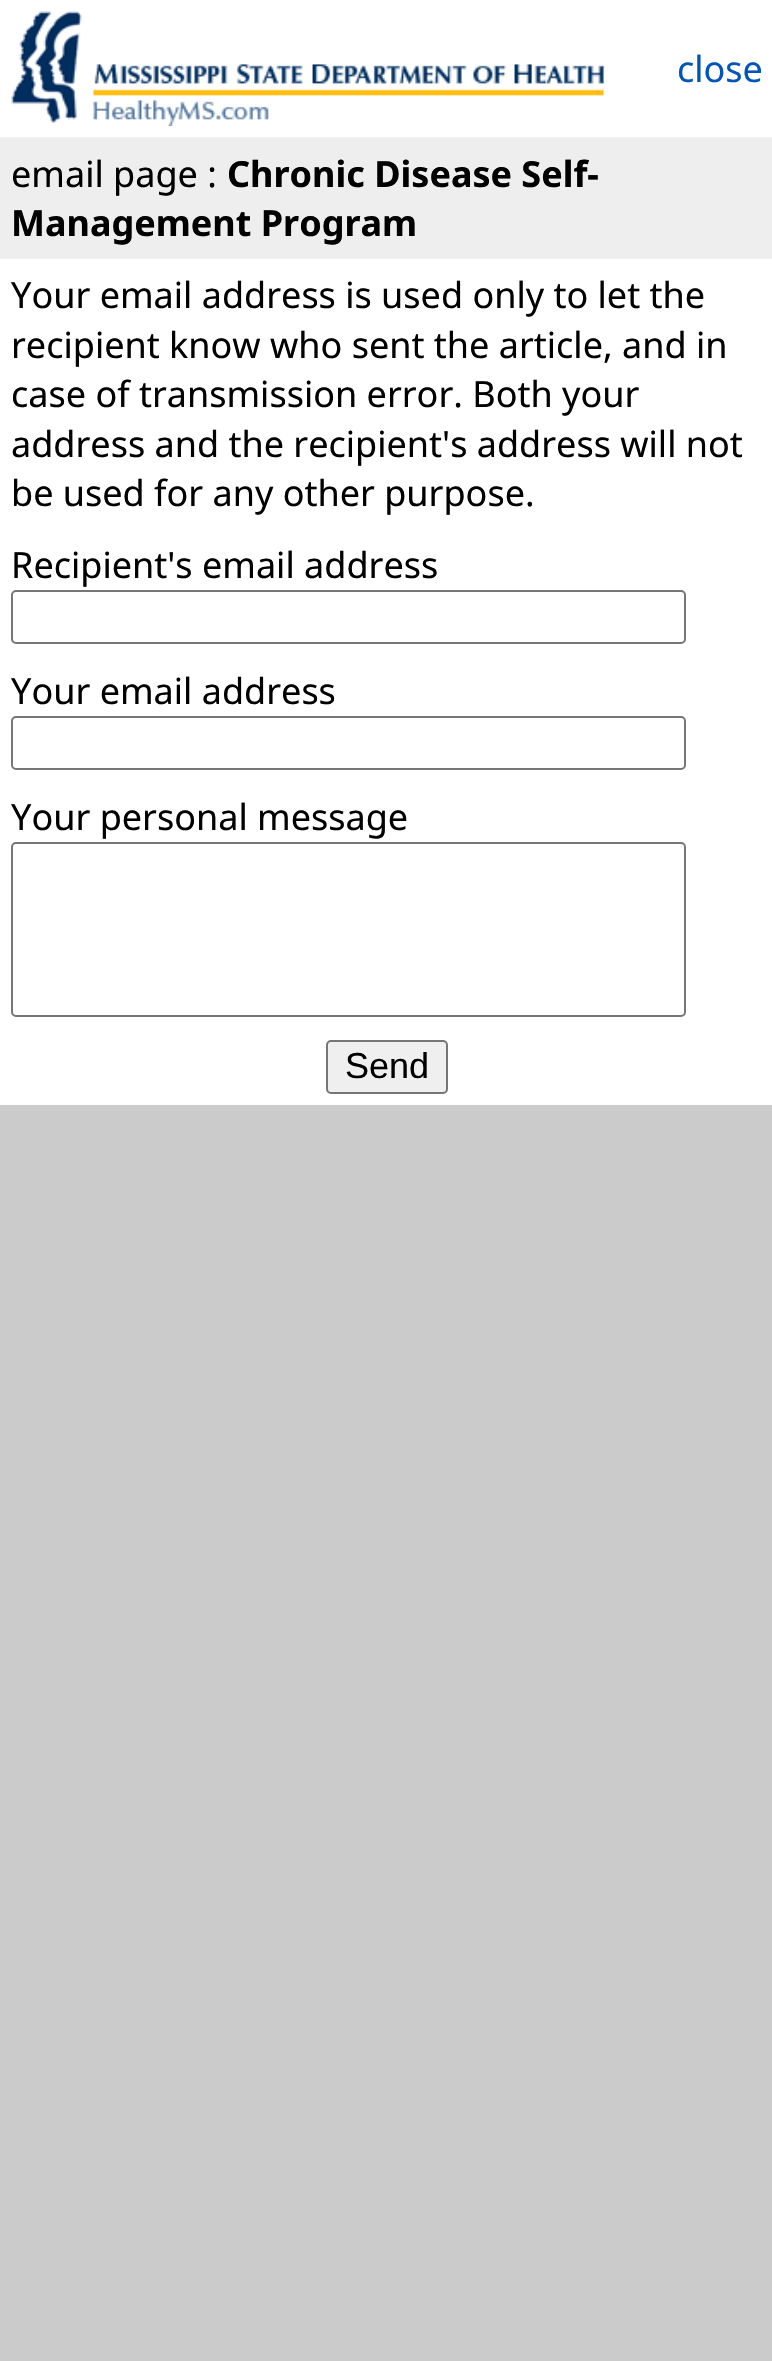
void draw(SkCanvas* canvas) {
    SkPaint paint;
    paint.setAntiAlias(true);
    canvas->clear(0xFFCBCBCB);
    paint.setColor(0xFFFFFFFF);
    canvas->drawRect(SkRect::MakeXYWH(0, 0, 772, 1105), paint);
    canvas->drawImageRect(SkImages::DeferredFromEncodedData(SkData::MakeFromFileName("img1.png")), SkRect::MakeXYWH(11, 11, 595, 115), SkSamplingOptions());
    SkFont font1(fontMgr->matchFamilyStyle("Noto Sans", SkFontStyle::Normal()), 36);
    font1.setSubpixel(true);
    paint.setColor(0xFF0055BB);
    canvas->drawString("close", 677, 82, font1, paint);
    paint.setColor(0xFFEEEEEE);
    canvas->drawRect(SkRect::MakeXYWH(0, 137, 772, 122), paint);
    paint.setColor(0xFF000000);
    canvas->drawString("email page :", 11, 187, font1, paint);
    SkFont font2(fontMgr->matchFamilyStyle("Noto Sans", SkFontStyle::Bold()), 36);
    font2.setSubpixel(true);
    canvas->drawString("Chronic Disease Self-", 227, 187, font2, paint);
    canvas->drawString("Management Program", 11, 236, font2, paint);
    canvas->drawString("Your email address is used only to let the", 11, 308, font1, paint);
    canvas->drawString("recipient know who sent the article, and in", 11, 358, font1, paint);
    canvas->drawString("case of transmission error. Both your", 11, 407, font1, paint);
    canvas->drawString("address and the recipient's address will not", 11, 457, font1, paint);
    canvas->drawString("be used for any other purpose.", 11, 506, font1, paint);
    canvas->drawString("Recipient's email address", 11, 578, font1, paint);
    paint.setStyle(SkPaint::kStroke_Style);
    paint.setStrokeWidth(2);
    paint.setColor(0xFF767676);
    canvas->drawRoundRect(SkRect::MakeXYWH(12, 591, 673, 52), 4, 4, paint);
    paint.setStyle(SkPaint::kFill_Style);
    paint.setColor(0xFF000000);
    canvas->drawString("Your email address", 11, 704, font1, paint);
    paint.setStyle(SkPaint::kStroke_Style);
    paint.setColor(0xFF767676);
    canvas->drawRoundRect(SkRect::MakeXYWH(12, 717, 673, 52), 4, 4, paint);
    paint.setStyle(SkPaint::kFill_Style);
    paint.setColor(0xFF000000);
    canvas->drawString("Your personal message", 11, 830, font1, paint);
    paint.setStyle(SkPaint::kStroke_Style);
    paint.setColor(0xFF767676);
    canvas->drawRoundRect(SkRect::MakeXYWH(12, 843, 673, 173), 4, 4, paint);
    paint.setStyle(SkPaint::kFill_Style);
    paint.setColor(0xFFEFEFEF);
    canvas->drawRoundRect(SkRect::MakeXYWH(327, 1041, 120, 52), 4, 4, paint);
    paint.setStyle(SkPaint::kStroke_Style);
    paint.setColor(0xFF767676);
    canvas->drawRoundRect(SkRect::MakeXYWH(327, 1041, 120, 52), 4, 4, paint);
    SkFont font3(fontMgr->matchFamilyStyle("Liberation Sans", SkFontStyle::Normal()), 36);
    font3.setSubpixel(true);
    paint.setStyle(SkPaint::kFill_Style);
    paint.setColor(0xFF000000);
    canvas->drawString("Send", 345, 1078, font3, paint);
}
